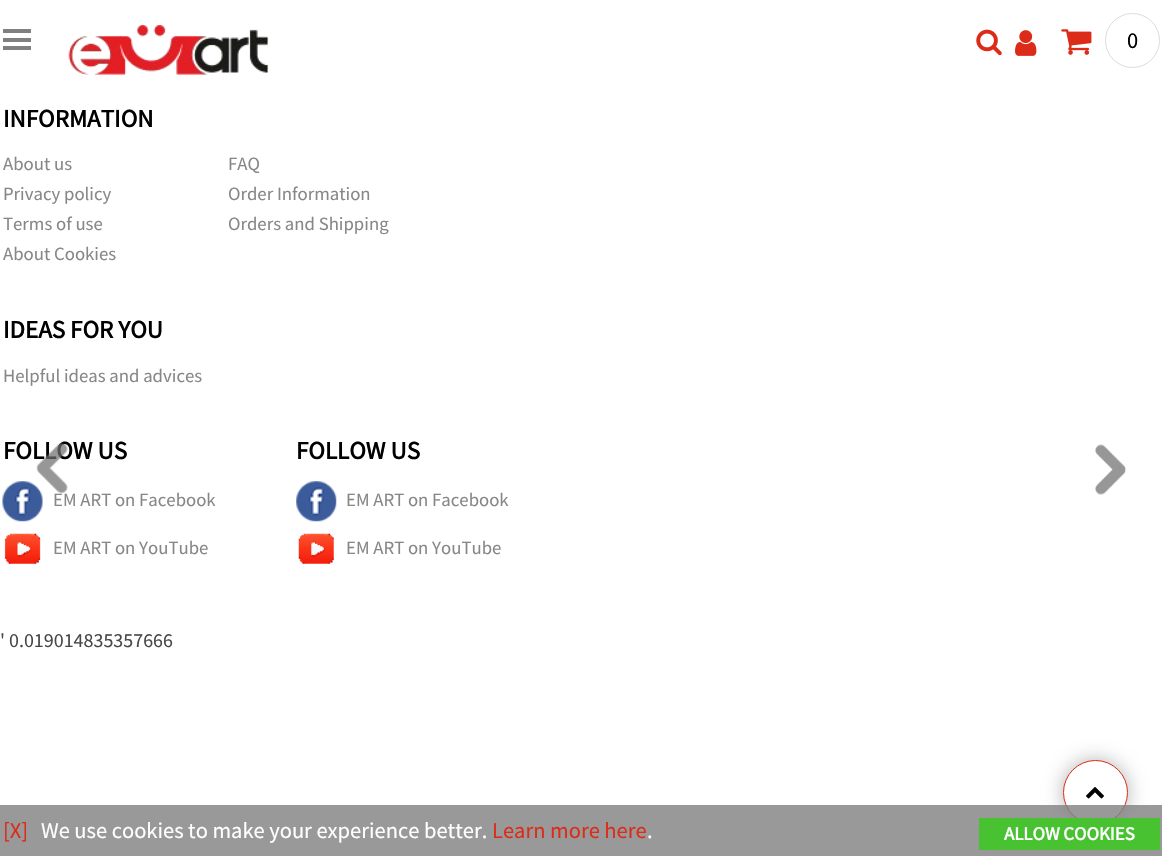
void draw(SkCanvas* canvas) {
    SkPaint paint;
    paint.setAntiAlias(true);
    canvas->clear(0xFFFFFFFF);
    paint.setColor(0xFF808080);
    canvas->drawRect(SkRect::MakeXYWH(3, 38, 28, 4), paint);
    canvas->drawRect(SkRect::MakeXYWH(3, 29, 28, 4), paint);
    canvas->drawRect(SkRect::MakeXYWH(3, 46, 28, 4), paint);
    canvas->drawImageRect(SkImages::DeferredFromEncodedData(SkData::MakeFromFileName("img1.png")), SkRect::MakeXYWH(68, 25, 201, 50), SkSamplingOptions());
    canvas->drawImageRect(SkImages::DeferredFromEncodedData(SkData::MakeFromFileName("img2.png")), SkRect::MakeXYWH(976, 29, 26, 27), SkSamplingOptions());
    canvas->drawImageRect(SkImages::DeferredFromEncodedData(SkData::MakeFromFileName("img3.png")), SkRect::MakeXYWH(1015, 30, 22, 26), SkSamplingOptions());
    canvas->drawImageRect(SkImages::DeferredFromEncodedData(SkData::MakeFromFileName("img4.png")), SkRect::MakeXYWH(1061, 29, 31, 26), SkSamplingOptions());
    paint.setStyle(SkPaint::kStroke_Style);
    paint.setStrokeWidth(1);
    paint.setColor(0xFFDCDCDC);
    canvas->drawCircle(1132.5f, 40.5f, 27, paint);
    SkFont font1(fontMgr->matchFamilyStyle("Source Sans Pro", SkFontStyle::Normal()), 22.5f);
    font1.setSubpixel(true);
    paint.setStyle(SkPaint::kFill_Style);
    paint.setColor(0xFF000000);
    canvas->drawString("0", 1127, 48, font1, paint);
    SkFont font2(fontMgr->matchFamilyStyle("Source Sans Pro", SkFontStyle::Bold()), 25);
    font2.setSubpixel(true);
    canvas->drawString("INFORMATION", 3, 127, font2, paint);
    SkFont font3(fontMgr->matchFamilyStyle("Source Sans Pro", SkFontStyle::Normal()), 18.75f);
    font3.setSubpixel(true);
    paint.setColor(0xFF878787);
    canvas->drawString("About us", 3, 170, font3, paint);
    canvas->drawString("Privacy policy", 3, 200, font3, paint);
    canvas->drawString("Terms of use", 3, 230, font3, paint);
    canvas->drawString("About Cookies", 3, 260, font3, paint);
    canvas->drawString("FAQ", 228, 170, font3, paint);
    canvas->drawString("Order Information", 228, 200, font3, paint);
    canvas->drawString("Orders and Shipping", 228, 230, font3, paint);
    paint.setColor(0xFF000000);
    canvas->drawString("IDEAS FOR YOU", 3, 338, font2, paint);
    paint.setColor(0xFF878787);
    canvas->drawString("Helpful ideas and advices", 3, 382, font3, paint);
    paint.setColor(0xFF000000);
    canvas->drawString("FOLLOW US", 3, 459, font2, paint);
    canvas->drawImageRect(SkImages::DeferredFromEncodedData(SkData::MakeFromFileName("img5.png")), SkRect::MakeXYWH(2, 481, 41, 41), SkSamplingOptions());
    paint.setColor(0xFF878787);
    canvas->drawString("EM ART on Facebook", 53, 506, font3, paint);
    canvas->drawImageRect(SkImages::DeferredFromEncodedData(SkData::MakeFromFileName("img6.png")), SkRect::MakeXYWH(4, 533, 37, 31), SkSamplingOptions());
    canvas->drawString("EM ART on YouTube", 53, 554, font3, paint);
    paint.setColor(0xFF000000);
    canvas->drawString("FOLLOW US", 296, 459, font2, paint);
    canvas->drawImageRect(SkImages::DeferredFromEncodedData(SkData::MakeFromFileName("img7.png")), SkRect::MakeXYWH(296, 481, 41, 41), SkSamplingOptions());
    paint.setColor(0xFF878787);
    canvas->drawString("EM ART on Facebook", 346, 506, font3, paint);
    canvas->drawImageRect(SkImages::DeferredFromEncodedData(SkData::MakeFromFileName("img8.png")), SkRect::MakeXYWH(298, 533, 36, 31), SkSamplingOptions());
    canvas->drawString("EM ART on YouTube", 346, 554, font3, paint);
    canvas->drawImageRect(SkImages::DeferredFromEncodedData(SkData::MakeFromFileName("img9.png")), SkRect::MakeXYWH(36, 443, 32, 51), SkSamplingOptions());
    canvas->drawImageRect(SkImages::DeferredFromEncodedData(SkData::MakeFromFileName("img10.png")), SkRect::MakeXYWH(1095, 444, 31, 51), SkSamplingOptions());
    SkFont font4(fontMgr->matchFamilyStyle("Source Sans Pro", SkFontStyle::Normal()), 20);
    font4.setSubpixel(true);
    paint.setColor(0xFF484848);
    canvas->drawString("' 0.019014835357666", 0, 647, font4, paint);
    paint.setColor(0x4D000000);
    paint.setMaskFilter(SkMaskFilter::MakeBlur(kNormal_SkBlurStyle, 9.5f));
    canvas->drawRoundRect(SkRect::MakeXYWH(1063, 760, 65, 65), 32.5f, 32.5f, paint);
    paint.setMaskFilter(nullptr);
    paint.setColor(0xFFFFFFFF);
    canvas->drawCircle(1095.5f, 792.5f, 32, paint);
    paint.setStyle(SkPaint::kStroke_Style);
    paint.setColor(0xFFDC2B19);
    canvas->drawCircle(1095.5f, 792.5f, 32, paint);
    canvas->drawImageRect(SkImages::DeferredFromEncodedData(SkData::MakeFromFileName("img11.png")), SkRect::MakeXYWH(1086, 787, 18, 12), SkSamplingOptions());
    paint.setStyle(SkPaint::kFill_Style);
    paint.setColor(0xCC7F7F7F);
    canvas->drawRect(SkRect::MakeXYWH(0, 805, 1162, 51), paint);
    paint.setColor(0xFFDC2B19);
    canvas->drawString("[X]", 3, 838, font1, paint);
    paint.setColor(0xFFFFFFFF);
    canvas->drawString("We use cookies to make your experience better.", 41, 838, font1, paint);
    paint.setColor(0xFFDC2B19);
    canvas->drawString("Learn more here", 492, 838, font1, paint);
    paint.setColor(0xFFFFFFFF);
    canvas->drawString(".", 647, 838, font1, paint);
    paint.setColor(0xFF48C231);
    canvas->drawRect(SkRect::MakeXYWH(979, 818, 181, 32), paint);
    SkFont font5(fontMgr->matchFamilyStyle("Source Sans Pro", SkFontStyle::Bold()), 18.75f);
    font5.setSubpixel(true);
    paint.setColor(0xFFFFFFFF);
    canvas->drawString("ALLOW COOKIES", 1004, 840, font5, paint);
}
